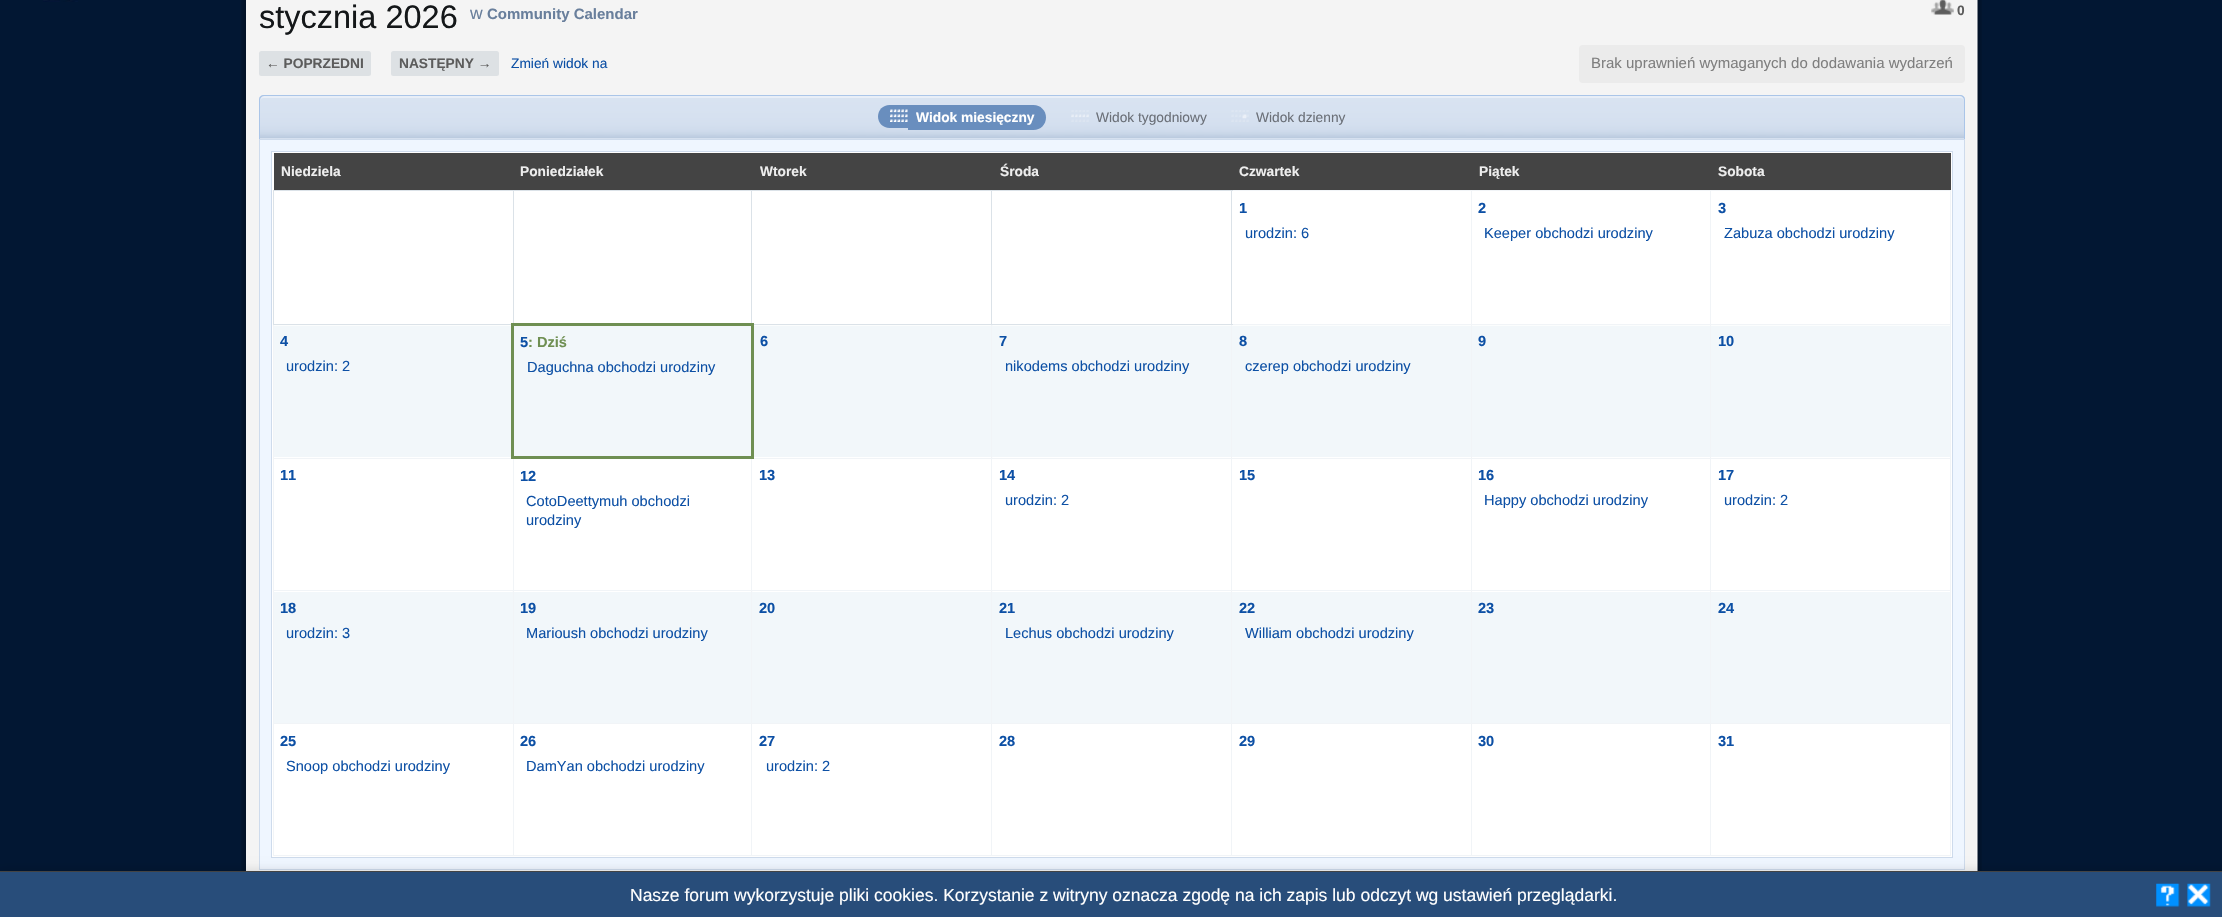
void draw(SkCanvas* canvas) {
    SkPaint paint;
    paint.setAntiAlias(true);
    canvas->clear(0xFF021733);
    canvas->drawImageRect(SkImages::DeferredFromEncodedData(SkData::MakeFromFileName("img1.png")), SkRect::MakeXYWH(43, 0, 35, 2), SkSamplingOptions());
    canvas->drawImageRect(SkImages::DeferredFromEncodedData(SkData::MakeFromFileName("img2.png")), SkRect::MakeXYWH(241, 0, 5, 871), SkSamplingOptions());
    canvas->drawImageRect(SkImages::DeferredFromEncodedData(SkData::MakeFromFileName("img3.png")), SkRect::MakeXYWH(1976, 0, 6, 871), SkSamplingOptions());
    paint.setColor(0xFFF4F4F4);
    canvas->drawRect(SkRect::MakeXYWH(246, 0, 1730, 871), paint);
    SkFont font1(fontMgr->matchFamilyStyle("Liberation Sans", SkFontStyle::Normal()), 32.5f);
    font1.setSubpixel(true);
    paint.setColor(0xFF141719);
    canvas->drawString("stycznia 2026", 259, 28, font1, paint);
    SkFont font2(fontMgr->matchFamilyStyle("Liberation Sans", SkFontStyle::Normal()), 17.5f);
    font2.setSubpixel(true);
    paint.setColor(0xFF697F9C);
    canvas->drawString("w", 470, 19, font2, paint);
    SkFont font3(fontMgr->matchFamilyStyle("Liberation Sans", SkFontStyle::Bold()), 15);
    font3.setSubpixel(true);
    canvas->drawString("Community Calendar", 487, 19, font3, paint);
    canvas->drawImageRect(SkImages::DeferredFromEncodedData(SkData::MakeFromFileName("img4.png")), SkRect::MakeXYWH(1931, 0, 23, 15), SkSamplingOptions());
    SkFont font4(fontMgr->matchFamilyStyle("Liberation Sans", SkFontStyle::Bold()), 13.75f);
    font4.setSubpixel(true);
    paint.setColor(0xFF5C5C5C);
    canvas->drawString("0", 1957, 15, font4, paint);
    paint.setColor(0xFFDDE1E4);
    canvas->drawRoundRect(SkRect::MakeXYWH(259, 51, 112, 25), 2.5f, 2.5f, paint);
    paint.setColor(0xFF5C5C5C);
    canvas->drawString("← POPRZEDNI", 266, 68, font4, paint);
    paint.setColor(0xFFDDE1E4);
    canvas->drawRoundRect(SkRect::MakeXYWH(391, 51, 108, 25), 2.5f, 2.5f, paint);
    paint.setColor(0xFF5C5C5C);
    canvas->drawString("NASTĘPNY →", 399, 68, font4, paint);
    SkFont font5(fontMgr->matchFamilyStyle("Liberation Sans", SkFontStyle::Normal()), 13.75f);
    font5.setSubpixel(true);
    paint.setColor(0xFF0D50A5);
    canvas->drawString("Zmień widok na", 511, 68, font5, paint);
    paint.setColor(0xFFEBEBEB);
    canvas->drawRoundRect(SkRect::MakeXYWH(1579, 45, 386, 38), 4, 4, paint);
    SkFont font6(fontMgr->matchFamilyStyle("Liberation Sans", SkFontStyle::Normal()), 15);
    font6.setSubpixel(true);
    paint.setColor(0xFF7F7F7F);
    canvas->drawString("Brak uprawnień wymaganych do dodawania wydarzeń", 1591, 68, font6, paint);
    paint.setColor(0xFFD5E0EF);
    canvas->drawPath(SkPathBuilder().moveTo(264, 96).lineTo(1960, 96).cubicTo(1962, 96, 1964, 98, 1964, 100).lineTo(1964, 139).lineTo(260, 139).lineTo(260, 100).cubicTo(260, 98, 262, 96, 264, 96).close().detach(), paint);
    canvas->drawImageRect(SkImages::DeferredFromEncodedData(SkData::MakeFromFileName("img5.png")), SkRect::MakeXYWH(259, 95, 1706, 43), SkSamplingOptions());
    paint.setColor(0xFFE8EEF7);
    canvas->drawPath(SkPathBuilder().moveTo(264, 98).lineTo(1960, 98).cubicTo(1962, 98, 1964, 99, 1964, 101).lineTo(1964, 100).cubicTo(1964, 98, 1962, 96, 1960, 96).lineTo(264, 96).cubicTo(262, 96, 260, 98, 260, 100).lineTo(260, 101).cubicTo(260, 99, 262, 98, 264, 98).close().detach(), paint);
    paint.setColor(0xFFAAC5E8);
    canvas->drawPath(SkPathBuilder(SkPathFillType::kEvenOdd).moveTo(264, 95).lineTo(1960, 95).cubicTo(1963, 95, 1965, 97, 1965, 100).lineTo(1965, 139).lineTo(259, 139).lineTo(259, 100).cubicTo(259, 97, 261, 95, 264, 95).close().moveTo(264, 96).lineTo(1960, 96).cubicTo(1962, 96, 1964, 98, 1964, 100).lineTo(1964, 139).lineTo(260, 139).lineTo(260, 100).cubicTo(260, 98, 262, 96, 264, 96).close().detach(), paint);
    paint.setColor(0xFF698EBE);
    canvas->drawPath(SkPathBuilder().moveTo(889.5f, 105).lineTo(908, 105).lineTo(908, 128).lineTo(889.5f, 128).cubicTo(883, 128, 878, 123, 878, 116.5f).cubicTo(878, 110, 883, 105, 889.5f, 105).close().detach(), paint);
    canvas->drawImageRect(SkImages::DeferredFromEncodedData(SkData::MakeFromFileName("img6.png")), SkRect::MakeXYWH(890, 109, 18, 13), SkSamplingOptions());
    canvas->drawPath(SkPathBuilder().moveTo(908, 105).lineTo(1033.5f, 105).cubicTo(1040.5f, 105, 1046, 110.5f, 1046, 117.5f).cubicTo(1046, 124.5f, 1040.5f, 130, 1033.5f, 130).lineTo(908, 130).close().detach(), paint);
    paint.setColor(0xFFFFFFFF);
    canvas->drawString("Widok miesięczny", 916, 122, font4, paint);
    canvas->drawImageRect(SkImages::DeferredFromEncodedData(SkData::MakeFromFileName("img7.png")), SkRect::MakeXYWH(1071, 110, 18, 12), SkSamplingOptions());
    paint.setColor(0xFF6B7078);
    canvas->drawString("Widok tygodniowy", 1096, 122, font5, paint);
    canvas->drawImageRect(SkImages::DeferredFromEncodedData(SkData::MakeFromFileName("img8.png")), SkRect::MakeXYWH(1231, 110, 18, 12), SkSamplingOptions());
    canvas->drawString("Widok dzienny", 1256, 122, font5, paint);
    paint.setColor(0xFFEFF6FF);
    canvas->drawRect(SkRect::MakeXYWH(259.5f, 139.5f, 1705, 730), paint);
    paint.setStyle(SkPaint::kStroke_Style);
    paint.setStrokeWidth(1);
    paint.setColor(0xFFCEDBEC);
    canvas->drawRect(SkRect::MakeXYWH(259.5f, 139.5f, 1705, 730), paint);
    paint.setStyle(SkPaint::kFill_Style);
    paint.setColor(0xFFFFFFFF);
    canvas->drawRect(SkRect::MakeXYWH(271.5f, 151.5f, 1681, 706), paint);
    paint.setStyle(SkPaint::kStroke_Style);
    paint.setColor(0xFFCEDBEC);
    canvas->drawRect(SkRect::MakeXYWH(271.5f, 151.5f, 1681, 706), paint);
    paint.setStyle(SkPaint::kFill_Style);
    paint.setColor(0xFF444444);
    canvas->drawRect(SkRect::MakeXYWH(274, 153, 1677, 37), paint);
    paint.setColor(0xFFEEEEEE);
    canvas->drawString("Niedziela", 281, 176, font4, paint);
    canvas->drawString("Poniedziałek", 520, 176, font4, paint);
    canvas->drawString("Wtorek", 760, 176, font4, paint);
    canvas->drawString("Środa", 1000, 176, font4, paint);
    canvas->drawString("Czwartek", 1239, 176, font4, paint);
    canvas->drawString("Piątek", 1479, 176, font4, paint);
    canvas->drawString("Sobota", 1718, 176, font4, paint);
    paint.setColor(0xFFF1F4F7);
    canvas->drawRect(SkRect::MakeXYWH(1710, 190, 241, 1), paint);
    canvas->drawRect(SkRect::MakeXYWH(1710, 324, 241, 1), paint);
    paint.setColor(0xFFF2F7FA);
    canvas->drawRect(SkRect::MakeXYWH(274, 325, 1676, 133), paint);
    canvas->drawImageRect(SkImages::DeferredFromEncodedData(SkData::MakeFromFileName("img19.png")), SkRect::MakeXYWH(1472, 457, 240, 1), SkSamplingOptions());
    paint.setColor(0xFFF1F4F7);
    canvas->drawRect(SkRect::MakeXYWH(1710, 458, 241, 1), paint);
    canvas->drawRect(SkRect::MakeXYWH(1710, 590, 241, 1), paint);
    paint.setColor(0xFFF2F7FA);
    canvas->drawRect(SkRect::MakeXYWH(274, 591, 1676, 132), paint);
    canvas->drawImageRect(SkImages::DeferredFromEncodedData(SkData::MakeFromFileName("img23.png")), SkRect::MakeXYWH(1472, 591, 240, 1), SkSamplingOptions());
    paint.setColor(0xFFF1F4F7);
    canvas->drawRect(SkRect::MakeXYWH(1710, 723, 241, 1), paint);
    canvas->drawRect(SkRect::MakeXYWH(1950, 723, 1, 133), paint);
    canvas->drawRect(SkRect::MakeXYWH(1710, 855, 241, 1), paint);
    canvas->drawRect(SkRect::MakeXYWH(1710, 723, 1, 133), paint);
    canvas->drawRect(SkRect::MakeXYWH(1471, 723, 240, 1), paint);
    canvas->drawRect(SkRect::MakeXYWH(1710, 590, 1, 134), paint);
    canvas->drawRect(SkRect::MakeXYWH(1471, 590, 240, 1), paint);
    canvas->drawRect(SkRect::MakeXYWH(1710, 458, 1, 133), paint);
    canvas->drawRect(SkRect::MakeXYWH(1471, 458, 240, 1), paint);
    canvas->drawRect(SkRect::MakeXYWH(1710, 324, 1, 135), paint);
    canvas->drawRect(SkRect::MakeXYWH(1471, 324, 240, 1), paint);
    canvas->drawRect(SkRect::MakeXYWH(1710, 190, 1, 135), paint);
    canvas->drawRect(SkRect::MakeXYWH(1471, 190, 240, 1), paint);
    canvas->drawRect(SkRect::MakeXYWH(1471, 855, 240, 1), paint);
    canvas->drawRect(SkRect::MakeXYWH(1471, 723, 1, 133), paint);
    canvas->drawRect(SkRect::MakeXYWH(1231, 723, 242, 1), paint);
    canvas->drawRect(SkRect::MakeXYWH(1471, 590, 1, 134), paint);
    canvas->drawRect(SkRect::MakeXYWH(1231, 590, 242, 1), paint);
    canvas->drawRect(SkRect::MakeXYWH(1471, 458, 1, 133), paint);
    canvas->drawRect(SkRect::MakeXYWH(1231, 458, 242, 1), paint);
    canvas->drawRect(SkRect::MakeXYWH(1471, 324, 1, 135), paint);
    canvas->drawRect(SkRect::MakeXYWH(1231, 324, 242, 1), paint);
    canvas->drawRect(SkRect::MakeXYWH(1471, 190, 1, 135), paint);
    canvas->drawRect(SkRect::MakeXYWH(1231, 190, 242, 1), paint);
    paint.setColor(0xFFDBE2E8);
    canvas->drawRect(SkRect::MakeXYWH(991, 190, 242, 1), paint);
    paint.setColor(0xFFF1F4F7);
    canvas->drawRect(SkRect::MakeXYWH(1231, 855, 242, 1), paint);
    canvas->drawRect(SkRect::MakeXYWH(1231, 723, 1, 133), paint);
    canvas->drawRect(SkRect::MakeXYWH(991, 723, 242, 1), paint);
    canvas->drawRect(SkRect::MakeXYWH(1231, 590, 1, 134), paint);
    canvas->drawRect(SkRect::MakeXYWH(991, 590, 242, 1), paint);
    canvas->drawRect(SkRect::MakeXYWH(1231, 458, 1, 133), paint);
    canvas->drawRect(SkRect::MakeXYWH(991, 458, 242, 1), paint);
    canvas->drawRect(SkRect::MakeXYWH(1231, 324, 1, 135), paint);
    paint.setColor(0xFFDBE2E8);
    canvas->drawRect(SkRect::MakeXYWH(1231, 190, 1, 135), paint);
    canvas->drawImageRect(SkImages::DeferredFromEncodedData(SkData::MakeFromFileName("img11.png")), SkRect::MakeXYWH(754, 325, 239, 1), SkSamplingOptions());
    canvas->drawImageRect(SkImages::DeferredFromEncodedData(SkData::MakeFromFileName("img16.png")), SkRect::MakeXYWH(754, 457, 239, 1), SkSamplingOptions());
    canvas->drawImageRect(SkImages::DeferredFromEncodedData(SkData::MakeFromFileName("img22.png")), SkRect::MakeXYWH(753, 591, 240, 1), SkSamplingOptions());
    paint.setColor(0xFFF1F4F7);
    canvas->drawRect(SkRect::MakeXYWH(991, 855, 242, 1), paint);
    canvas->drawRect(SkRect::MakeXYWH(991, 723, 1, 133), paint);
    canvas->drawRect(SkRect::MakeXYWH(751, 723, 242, 1), paint);
    canvas->drawRect(SkRect::MakeXYWH(991, 590, 1, 134), paint);
    canvas->drawRect(SkRect::MakeXYWH(751, 590, 242, 1), paint);
    canvas->drawRect(SkRect::MakeXYWH(991, 458, 1, 133), paint);
    canvas->drawRect(SkRect::MakeXYWH(751, 458, 242, 1), paint);
    canvas->drawRect(SkRect::MakeXYWH(991, 324, 1, 135), paint);
    paint.setColor(0xFFDBE2E8);
    canvas->drawRect(SkRect::MakeXYWH(991, 324, 242, 1), paint);
    canvas->drawRect(SkRect::MakeXYWH(991, 190, 1, 135), paint);
    canvas->drawRect(SkRect::MakeXYWH(751, 190, 242, 1), paint);
    canvas->drawRect(SkRect::MakeXYWH(751, 324, 242, 1), paint);
    canvas->drawRect(SkRect::MakeXYWH(751, 190, 1, 135), paint);
    canvas->drawRect(SkRect::MakeXYWH(513, 190, 240, 1), paint);
    canvas->drawRect(SkRect::MakeXYWH(513, 190, 1, 135), paint);
    canvas->drawRect(SkRect::MakeXYWH(273, 190, 241, 1), paint);
    canvas->drawImageRect(SkImages::DeferredFromEncodedData(SkData::MakeFromFileName("img21.png")), SkRect::MakeXYWH(514, 591, 239, 1), SkSamplingOptions());
    paint.setColor(0xFFF1F4F7);
    canvas->drawRect(SkRect::MakeXYWH(751, 855, 242, 1), paint);
    canvas->drawRect(SkRect::MakeXYWH(751, 723, 1, 133), paint);
    canvas->drawRect(SkRect::MakeXYWH(513, 723, 240, 1), paint);
    canvas->drawRect(SkRect::MakeXYWH(751, 590, 1, 134), paint);
    canvas->drawRect(SkRect::MakeXYWH(513, 590, 240, 1), paint);
    canvas->drawRect(SkRect::MakeXYWH(513, 855, 240, 1), paint);
    canvas->drawRect(SkRect::MakeXYWH(513, 723, 1, 133), paint);
    canvas->drawRect(SkRect::MakeXYWH(273, 723, 241, 1), paint);
    canvas->drawRect(SkRect::MakeXYWH(513, 590, 1, 134), paint);
    canvas->drawRect(SkRect::MakeXYWH(273, 590, 241, 1), paint);
    canvas->drawRect(SkRect::MakeXYWH(513, 458, 1, 133), paint);
    canvas->drawRect(SkRect::MakeXYWH(273, 458, 241, 1), paint);
    canvas->drawRect(SkRect::MakeXYWH(273, 855, 241, 1), paint);
    canvas->drawRect(SkRect::MakeXYWH(273, 723, 1, 133), paint);
    canvas->drawRect(SkRect::MakeXYWH(273, 590, 1, 134), paint);
    canvas->drawRect(SkRect::MakeXYWH(273, 324, 1, 267), paint);
    paint.setColor(0xFFDBE2E8);
    canvas->drawRect(SkRect::MakeXYWH(273, 324, 241, 1), paint);
    canvas->drawRect(SkRect::MakeXYWH(273, 190, 1, 135), paint);
    SkFont font7(fontMgr->matchFamilyStyle("Liberation Sans", SkFontStyle::Bold()), 14.6f);
    font7.setSubpixel(true);
    paint.setColor(0xFF0D50A5);
    canvas->drawString("1", 1239, 213, font7, paint);
    SkFont font8(fontMgr->matchFamilyStyle("Liberation Sans", SkFontStyle::Normal()), 14.6f);
    font8.setSubpixel(true);
    canvas->drawString("urodzin: 6", 1245, 238, font8, paint);
    canvas->drawString("2", 1478, 213, font7, paint);
    canvas->drawString("Keeper obchodzi urodziny", 1484, 238, font8, paint);
    paint.setColor(0xFFF1F4F7);
    canvas->drawRect(SkRect::MakeXYWH(1950, 590, 1, 134), paint);
    canvas->drawRect(SkRect::MakeXYWH(1950, 458, 1, 133), paint);
    canvas->drawRect(SkRect::MakeXYWH(1950, 324, 1, 135), paint);
    canvas->drawRect(SkRect::MakeXYWH(1950, 190, 1, 135), paint);
    paint.setColor(0xFF0D50A5);
    canvas->drawString("3", 1718, 213, font7, paint);
    canvas->drawString("Zabuza obchodzi urodziny", 1724, 238, font8, paint);
    canvas->drawImageRect(SkImages::DeferredFromEncodedData(SkData::MakeFromFileName("img9.png")), SkRect::MakeXYWH(274, 325, 237, 1), SkSamplingOptions());
    canvas->drawString("4", 280, 346, font7, paint);
    canvas->drawString("urodzin: 2", 286, 371, font8, paint);
    canvas->drawImageRect(SkImages::DeferredFromEncodedData(SkData::MakeFromFileName("img10.png")), SkRect::MakeXYWH(514, 326, 237, 130), SkSamplingOptions());
    paint.setColor(0xFF6F8F52);
    canvas->drawRect(SkRect::MakeXYWH(511, 323, 243, 3), paint);
    paint.setColor(0xFFF1F4F7);
    canvas->drawRect(SkRect::MakeXYWH(751, 458, 1, 133), paint);
    paint.setColor(0xFF6F8F52);
    canvas->drawRect(SkRect::MakeXYWH(751, 323, 3, 136), paint);
    canvas->drawRect(SkRect::MakeXYWH(511, 456, 243, 3), paint);
    canvas->drawRect(SkRect::MakeXYWH(511, 323, 3, 136), paint);
    paint.setColor(0xFF0D50A5);
    canvas->drawString("5", 520, 347, font7, paint);
    paint.setColor(0xFF6F8F52);
    canvas->drawString(": Dziś", 528, 347, font7, paint);
    paint.setColor(0xFF0D50A5);
    canvas->drawString("Daguchna obchodzi urodziny", 527, 372, font8, paint);
    canvas->drawString("6", 760, 346, font7, paint);
    paint.setColor(0xFFFBFDFD);
    canvas->drawRect(SkRect::MakeXYWH(993, 325, 238, 1), paint);
    paint.setColor(0xFF0D50A5);
    canvas->drawString("7", 999, 346, font7, paint);
    canvas->drawString("nikodems obchodzi urodziny", 1005, 371, font8, paint);
    canvas->drawImageRect(SkImages::DeferredFromEncodedData(SkData::MakeFromFileName("img12.png")), SkRect::MakeXYWH(1232, 325, 239, 1), SkSamplingOptions());
    canvas->drawString("8", 1239, 346, font7, paint);
    canvas->drawString("czerep obchodzi urodziny", 1245, 371, font8, paint);
    canvas->drawImageRect(SkImages::DeferredFromEncodedData(SkData::MakeFromFileName("img13.png")), SkRect::MakeXYWH(1472, 325, 238, 1), SkSamplingOptions());
    canvas->drawString("9", 1478, 346, font7, paint);
    canvas->drawImageRect(SkImages::DeferredFromEncodedData(SkData::MakeFromFileName("img14.png")), SkRect::MakeXYWH(1711, 325, 239, 1), SkSamplingOptions());
    canvas->drawString("10", 1718, 346, font7, paint);
    canvas->drawImageRect(SkImages::DeferredFromEncodedData(SkData::MakeFromFileName("img15.png")), SkRect::MakeXYWH(274, 457, 237, 1), SkSamplingOptions());
    canvas->drawString("11", 280, 480, font7, paint);
    canvas->drawString("12", 520, 481, font7, paint);
    canvas->drawString("CotoDeettymuh obchodzi", 526, 506, font8, paint);
    canvas->drawString("urodziny", 526, 525, font8, paint);
    canvas->drawString("13", 759, 480, font7, paint);
    canvas->drawImageRect(SkImages::DeferredFromEncodedData(SkData::MakeFromFileName("img17.png")), SkRect::MakeXYWH(993, 457, 238, 1), SkSamplingOptions());
    canvas->drawString("14", 999, 480, font7, paint);
    canvas->drawString("urodzin: 2", 1005, 505, font8, paint);
    canvas->drawImageRect(SkImages::DeferredFromEncodedData(SkData::MakeFromFileName("img18.png")), SkRect::MakeXYWH(1232, 457, 239, 1), SkSamplingOptions());
    canvas->drawString("15", 1239, 480, font7, paint);
    canvas->drawString("16", 1478, 480, font7, paint);
    canvas->drawString("Happy obchodzi urodziny", 1484, 505, font8, paint);
    canvas->drawImageRect(SkImages::DeferredFromEncodedData(SkData::MakeFromFileName("img20.png")), SkRect::MakeXYWH(1711, 457, 239, 1), SkSamplingOptions());
    canvas->drawString("17", 1718, 480, font7, paint);
    canvas->drawString("urodzin: 2", 1724, 505, font8, paint);
    canvas->drawImageRect(SkImages::DeferredFromEncodedData(SkData::MakeFromFileName("img21.png")), SkRect::MakeXYWH(274, 591, 239, 1), SkSamplingOptions());
    canvas->drawString("18", 280, 613, font7, paint);
    canvas->drawString("urodzin: 3", 286, 638, font8, paint);
    canvas->drawString("19", 520, 613, font7, paint);
    canvas->drawString("Marioush obchodzi urodziny", 526, 638, font8, paint);
    canvas->drawString("20", 759, 613, font7, paint);
    canvas->drawImageRect(SkImages::DeferredFromEncodedData(SkData::MakeFromFileName("img17.png")), SkRect::MakeXYWH(993, 591, 238, 1), SkSamplingOptions());
    canvas->drawString("21", 999, 613, font7, paint);
    canvas->drawString("Lechus obchodzi urodziny", 1005, 638, font8, paint);
    canvas->drawImageRect(SkImages::DeferredFromEncodedData(SkData::MakeFromFileName("img18.png")), SkRect::MakeXYWH(1232, 591, 239, 1), SkSamplingOptions());
    canvas->drawString("22", 1239, 613, font7, paint);
    canvas->drawString("William obchodzi urodziny", 1245, 638, font8, paint);
    canvas->drawString("23", 1478, 613, font7, paint);
    canvas->drawImageRect(SkImages::DeferredFromEncodedData(SkData::MakeFromFileName("img24.png")), SkRect::MakeXYWH(1711, 591, 239, 1), SkSamplingOptions());
    canvas->drawString("24", 1718, 613, font7, paint);
    canvas->drawString("25", 280, 746, font7, paint);
    canvas->drawString("Snoop obchodzi urodziny", 286, 771, font8, paint);
    canvas->drawString("26", 520, 746, font7, paint);
    canvas->drawString("DamYan obchodzi urodziny", 526, 771, font8, paint);
    canvas->drawString("27", 759, 746, font7, paint);
    canvas->drawString("urodzin: 2", 766, 771, font8, paint);
    canvas->drawString("28", 999, 746, font7, paint);
    canvas->drawString("29", 1239, 746, font7, paint);
    canvas->drawString("30", 1478, 746, font7, paint);
    canvas->drawString("31", 1718, 746, font7, paint);
    paint.setColor(0x26000000);
    paint.setMaskFilter(SkMaskFilter::MakeBlur(kNormal_SkBlurStyle, 5));
    canvas->drawRect(SkRect::MakeXYWH(0, 871, 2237, 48), paint);
    paint.setMaskFilter(nullptr);
    paint.setColor(0xFF284D7A);
    canvas->drawRect(SkRect::MakeXYWH(0, 872, 2222, 45), paint);
    paint.setColor(0xFF444444);
    canvas->drawRect(SkRect::MakeXYWH(0, 871, 2222, 1), paint);
    paint.setColor(0xFFFFFFFF);
    canvas->drawString("Nasze forum wykorzystuje pliki cookies. Korzystanie z witryny oznacza zgodę na ich zapis lub odczyt wg ustawień przeglądarki.", 630, 901, font2, paint);
    canvas->drawImageRect(SkImages::DeferredFromEncodedData(SkData::MakeFromFileName("img25.png")), SkRect::MakeXYWH(2156, 883, 24, 24), SkSamplingOptions());
    canvas->drawImageRect(SkImages::DeferredFromEncodedData(SkData::MakeFromFileName("img26.png")), SkRect::MakeXYWH(2187, 883, 24, 24), SkSamplingOptions());
}
